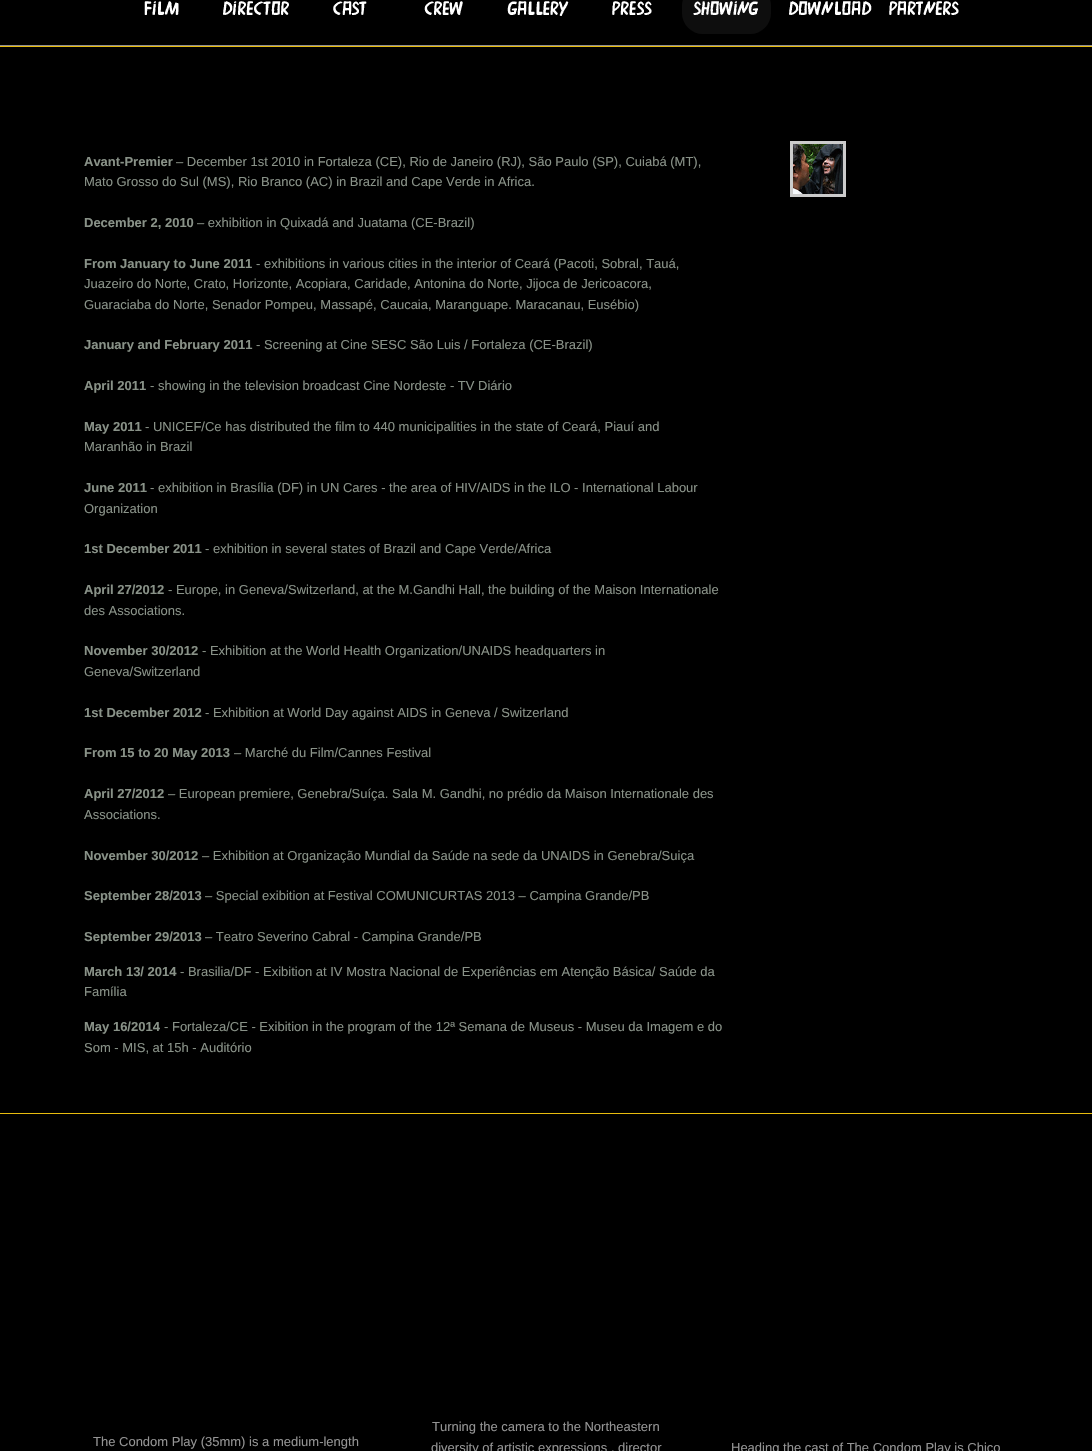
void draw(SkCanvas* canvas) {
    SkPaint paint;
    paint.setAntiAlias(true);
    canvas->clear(0xFF000000);
    paint.setColor(0xFF8F8C8F);
    canvas->drawRect(SkRect::MakeXYWH(0, 45, 1092, 1), paint);
    canvas->drawImageRect(SkImages::DeferredFromEncodedData(SkData::MakeFromFileName("img1.png")), SkRect::MakeXYWH(144, 1, 35, 14), SkSamplingOptions());
    canvas->drawImageRect(SkImages::DeferredFromEncodedData(SkData::MakeFromFileName("img2.png")), SkRect::MakeXYWH(223, 1, 66, 14), SkSamplingOptions());
    canvas->drawImageRect(SkImages::DeferredFromEncodedData(SkData::MakeFromFileName("img3.png")), SkRect::MakeXYWH(333, 1, 34, 14), SkSamplingOptions());
    canvas->drawImageRect(SkImages::DeferredFromEncodedData(SkData::MakeFromFileName("img4.png")), SkRect::MakeXYWH(424, 1, 39, 14), SkSamplingOptions());
    canvas->drawImageRect(SkImages::DeferredFromEncodedData(SkData::MakeFromFileName("img5.png")), SkRect::MakeXYWH(507, 1, 62, 15), SkSamplingOptions());
    canvas->drawImageRect(SkImages::DeferredFromEncodedData(SkData::MakeFromFileName("img6.png")), SkRect::MakeXYWH(612, 1, 40, 14), SkSamplingOptions());
    paint.setColor(0xFF0E0E0E);
    canvas->drawRoundRect(SkRect::MakeXYWH(682, -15, 89, 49), 21, 21, paint);
    canvas->drawImageRect(SkImages::DeferredFromEncodedData(SkData::MakeFromFileName("img7.png")), SkRect::MakeXYWH(693, 1, 65, 14), SkSamplingOptions());
    canvas->drawImageRect(SkImages::DeferredFromEncodedData(SkData::MakeFromFileName("img8.png")), SkRect::MakeXYWH(789, 1, 83, 14), SkSamplingOptions());
    canvas->drawImageRect(SkImages::DeferredFromEncodedData(SkData::MakeFromFileName("img9.png")), SkRect::MakeXYWH(889, 1, 70, 14), SkSamplingOptions());
    paint.setColor(0xFFE8BC0E);
    canvas->drawRect(SkRect::MakeXYWH(0, 46, 1092, 1), paint);
    SkFont font1(fontMgr->matchFamilyStyle("Liberation Sans", SkFontStyle::Bold()), 13);
    font1.setSubpixel(true);
    paint.setColor(0xFF899288);
    canvas->drawString("Avant-Premier", 84, 166, font1, paint);
    SkFont font2(fontMgr->matchFamilyStyle("Liberation Sans", SkFontStyle::Normal()), 13);
    font2.setSubpixel(true);
    canvas->drawString("– December 1st 2010 in Fortaleza (CE), Rio de Janeiro (RJ), São Paulo (SP), Cuiabá (MT),", 176, 166, font2, paint);
    canvas->drawString("Mato Grosso do Sul (MS), Rio Branco (AC) in Brazil and Cape Verde in Africa.", 84, 186, font2, paint);
    canvas->drawString("December 2, 2010", 84, 227, font1, paint);
    canvas->drawString("– exhibition in Quixadá and Juatama (CE-Brazil)", 197, 227, font2, paint);
    canvas->drawString("From January to June 2011", 84, 268, font1, paint);
    canvas->drawString("- exhibitions in various cities in the interior of Ceará (Pacoti, Sobral, Tauá,", 256, 268, font2, paint);
    canvas->drawString("Juazeiro do Norte, Crato, Horizonte, Acopiara, Caridade, Antonina do Norte, Jijoca de Jericoacora,", 84, 288, font2, paint);
    canvas->drawString("Guaraciaba do Norte, Senador Pompeu, Massapé, Caucaia, Maranguape. Maracanau, Eusébio)", 84, 309, font2, paint);
    canvas->drawString("January and February 2011", 84, 349, font1, paint);
    canvas->drawString("- Screening at Cine SESC São Luis / Fortaleza (CE-Brazil)", 256, 349, font2, paint);
    canvas->drawString("April 2011", 84, 390, font1, paint);
    canvas->drawString("- showing in the television broadcast Cine Nordeste - TV Diário", 150, 390, font2, paint);
    canvas->drawString("May 2011", 84, 431, font1, paint);
    canvas->drawString("- UNICEF/Ce has distributed the film to 440 municipalities in the state of Ceará, Piauí and", 145, 431, font2, paint);
    canvas->drawString("Maranhão in Brazil", 84, 451, font2, paint);
    canvas->drawString("June 2011", 84, 492, font1, paint);
    canvas->drawString("- exhibition in Brasília (DF) in UN Cares - the area of HIV/AIDS in the ILO - International Labour", 150, 492, font2, paint);
    canvas->drawString("Organization", 84, 513, font2, paint);
    canvas->drawString("1st December 2011", 84, 553, font1, paint);
    canvas->drawString("- exhibition in several states of Brazil and Cape Verde/Africa", 205, 553, font2, paint);
    canvas->drawString("April 27/2012", 84, 594, font1, paint);
    canvas->drawString("- Europe, in Geneva/Switzerland, at the M.Gandhi Hall, the building of the Maison Internationale", 168, 594, font2, paint);
    canvas->drawString("des Associations.", 84, 615, font2, paint);
    canvas->drawString("November 30/2012", 84, 655, font1, paint);
    canvas->drawString("- Exhibition at the World Health Organization/UNAIDS headquarters in", 202, 655, font2, paint);
    canvas->drawString("Geneva/Switzerland", 84, 676, font2, paint);
    canvas->drawString("1st December 2012", 84, 717, font1, paint);
    canvas->drawString("- Exhibition at World Day against AIDS in Geneva / Switzerland", 205, 717, font2, paint);
    canvas->drawString("From 15 to 20 May 2013", 84, 757, font1, paint);
    canvas->drawString("– Marché du Film/Cannes Festival", 234, 757, font2, paint);
    canvas->drawString("April 27/2012", 84, 798, font1, paint);
    canvas->drawString("– European premiere, Genebra/Suíça. Sala M. Gandhi, no prédio da Maison Internationale des", 168, 798, font2, paint);
    canvas->drawString("Associations.", 84, 819, font2, paint);
    canvas->drawString("November 30/2012", 84, 860, font1, paint);
    canvas->drawString("– Exhibition at Organização Mundial da Saúde na sede da UNAIDS in Genebra/Suiça", 202, 860, font2, paint);
    canvas->drawString("September 28/2013", 84, 900, font1, paint);
    canvas->drawString("– Special exibition at Festival COMUNICURTAS 2013 – Campina Grande/PB", 205, 900, font2, paint);
    canvas->drawString("September 29/2013", 84, 941, font1, paint);
    canvas->drawString("– Teatro Severino Cabral - Campina Grande/PB", 205, 941, font2, paint);
    canvas->drawString("March 13/ 2014", 84, 976, font1, paint);
    canvas->drawString("- Brasilia/DF - Exibition at IV Mostra Nacional de Experiências em Atenção Básica/ Saúde da", 180, 976, font2, paint);
    canvas->drawString("Família", 84, 996, font2, paint);
    canvas->drawString("May 16/2014", 84, 1031, font1, paint);
    canvas->drawString("- Fortaleza/CE - Exibition in the program of the 12ª Semana de Museus - Museu da Imagem e do", 164, 1031, font2, paint);
    canvas->drawString("Som - MIS, at 15h - Auditório", 84, 1052, font2, paint);
    paint.setStyle(SkPaint::kStroke_Style);
    paint.setStrokeWidth(3);
    paint.setColor(0xFFCCCCCC);
    canvas->drawRect(SkRect::MakeXYWH(791.5f, 142.5f, 53, 53), paint);
    canvas->drawImageRect(SkImages::DeferredFromEncodedData(SkData::MakeFromFileName("img10.png")), SkRect::MakeXYWH(793, 144, 50, 50), SkSamplingOptions());
    paint.setStyle(SkPaint::kFill_Style);
    paint.setColor(0xFFE8BC0E);
    canvas->drawRect(SkRect::MakeXYWH(0, 1113, 1092, 1), paint);
    paint.setColor(0xFF949494);
    canvas->drawString("The Condom Play (35mm) is a medium-length", 93, 1446, font2, paint);
    canvas->drawString("Turning the camera to the Northeastern", 432, 1431, font2, paint);
    canvas->drawString("diversity of artistic expressions , director", 431, 1452, font2, paint);
    canvas->drawString("Heading the cast of The Condom Play is Chico", 731, 1452, font2, paint);
}
